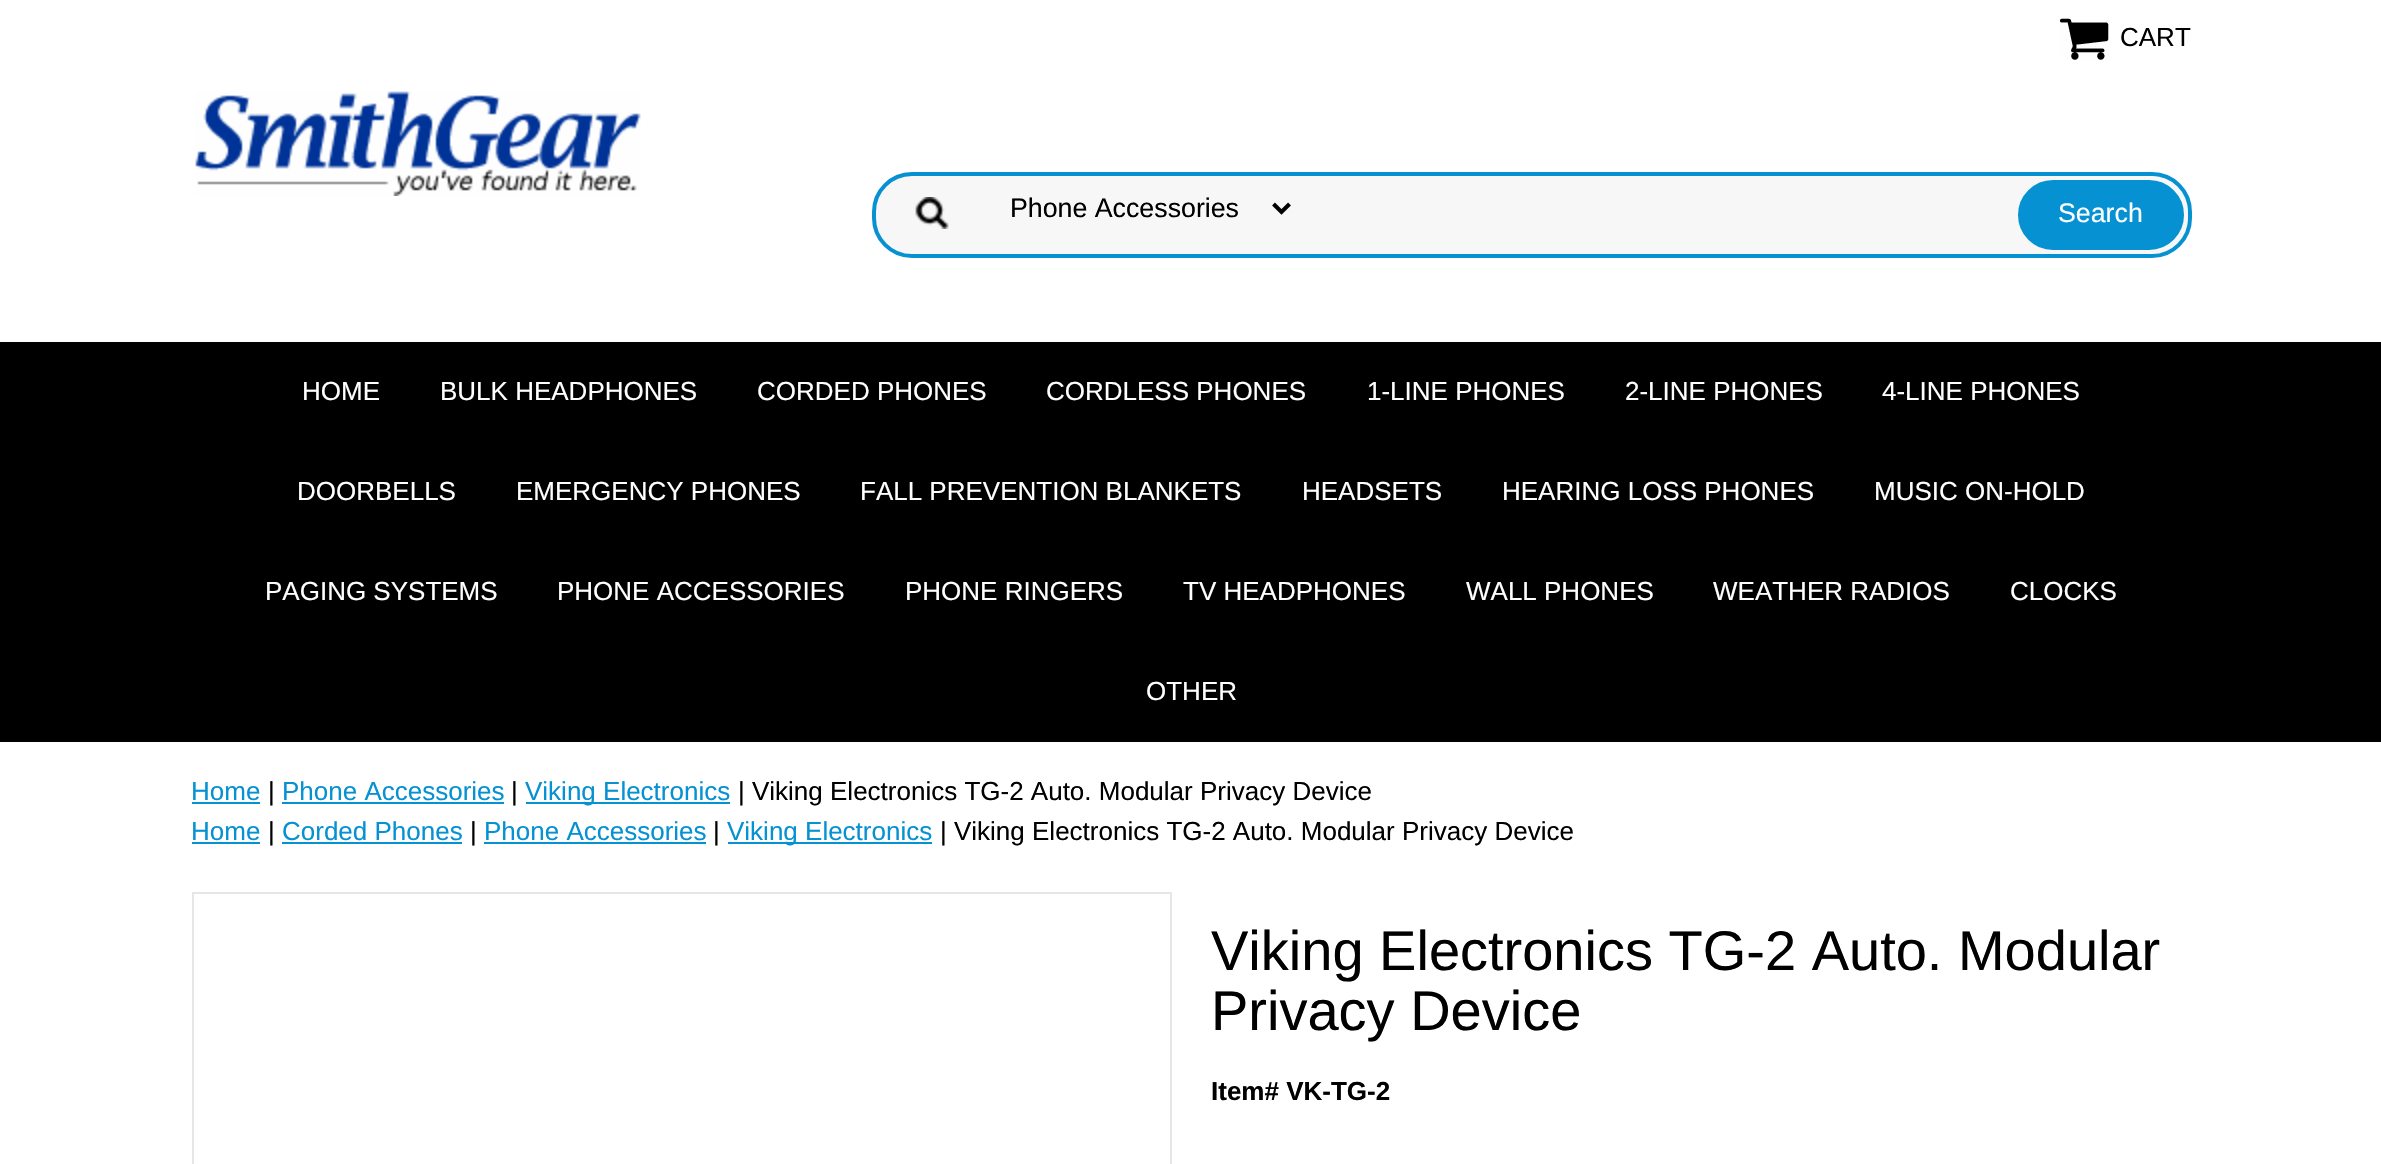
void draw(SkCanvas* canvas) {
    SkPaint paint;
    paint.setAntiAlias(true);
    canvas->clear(0xFFFFFFFF);
    canvas->drawImageRect(SkImages::DeferredFromEncodedData(SkData::MakeFromFileName("img1.png")), SkRect::MakeXYWH(2060, 18, 49, 42), SkSamplingOptions());
    SkFont font1(fontMgr->matchFamilyStyle("Liberation Sans", SkFontStyle::Normal()), 26);
    font1.setSubpixel(true);
    paint.setColor(0xFF000000);
    canvas->drawString("CART", 2120, 46, font1, paint);
    canvas->drawImageRect(SkImages::DeferredFromEncodedData(SkData::MakeFromFileName("img2.png")), SkRect::MakeXYWH(195, 91, 446, 105), SkSamplingOptions());
    paint.setColor(0xFFF7F7F7);
    canvas->drawRoundRect(SkRect::MakeXYWH(872, 172, 1320, 86), 40, 40, paint);
    canvas->drawImageRect(SkImages::DeferredFromEncodedData(SkData::MakeFromFileName("img3.png")), SkRect::MakeXYWH(915, 197, 34, 32), SkSamplingOptions());
    paint.setStyle(SkPaint::kStroke_Style);
    paint.setStrokeWidth(4);
    paint.setColor(0xFF0591D2);
    canvas->drawRoundRect(SkRect::MakeXYWH(874, 174, 1316, 82), 38, 38, paint);
    paint.setColor(0xFF000000);
    canvas->drawPath(SkPathBuilder().moveTo(1273.5f, 204).lineTo(1281.5f, 212).lineTo(1289.5f, 204).detach(), paint);
    SkFont font2(fontMgr->matchFamilyStyle("Liberation Sans", SkFontStyle::Normal()), 26.75f);
    font2.setSubpixel(true);
    paint.setStyle(SkPaint::kFill_Style);
    canvas->drawString("Phone Accessories", 1010, 217, font2, paint);
    paint.setColor(0xFF0591D2);
    canvas->drawRoundRect(SkRect::MakeXYWH(2016, 178, 170, 74), 37, 37, paint);
    paint.setStyle(SkPaint::kStroke_Style);
    paint.setColor(0xFFF7F7F7);
    canvas->drawRoundRect(SkRect::MakeXYWH(2016, 178, 170, 74), 37, 37, paint);
    paint.setStyle(SkPaint::kFill_Style);
    paint.setColor(0xFFFFFFFF);
    canvas->drawString("Search", 2058, 222, font2, paint);
    paint.setColor(0xFF000000);
    canvas->drawRect(SkRect::MakeXYWH(0, 342, 2381, 400), paint);
    paint.setColor(0xFFFFFFFF);
    canvas->drawString("HOME", 302, 400, font1, paint);
    canvas->drawString("BULK HEADPHONES", 440, 400, font1, paint);
    canvas->drawString("CORDED PHONES", 757, 400, font1, paint);
    canvas->drawString("CORDLESS PHONES", 1046, 400, font1, paint);
    canvas->drawString("1-LINE PHONES", 1367, 400, font1, paint);
    canvas->drawString("2-LINE PHONES", 1625, 400, font1, paint);
    canvas->drawString("4-LINE PHONES", 1882, 400, font1, paint);
    canvas->drawString("DOORBELLS", 297, 500, font1, paint);
    canvas->drawString("EMERGENCY PHONES", 516, 500, font1, paint);
    canvas->drawString("FALL PREVENTION BLANKETS", 860, 500, font1, paint);
    canvas->drawString("HEADSETS", 1302, 500, font1, paint);
    canvas->drawString("HEARING LOSS PHONES", 1502, 500, font1, paint);
    canvas->drawString("MUSIC ON-HOLD", 1874, 500, font1, paint);
    canvas->drawString("PAGING SYSTEMS", 265, 600, font1, paint);
    canvas->drawString("PHONE ACCESSORIES", 557, 600, font1, paint);
    canvas->drawString("PHONE RINGERS", 905, 600, font1, paint);
    canvas->drawString("TV HEADPHONES", 1183, 600, font1, paint);
    canvas->drawString("WALL PHONES", 1466, 600, font1, paint);
    canvas->drawString("WEATHER RADIOS", 1713, 600, font1, paint);
    canvas->drawString("CLOCKS", 2010, 600, font1, paint);
    canvas->drawString("OTHER", 1146, 700, font1, paint);
    paint.setColor(0xFF0591D2);
    canvas->drawString("Home", 191, 800, font1, paint);
    canvas->drawRect(SkRect::MakeXYWH(192, 802, 68, 2), paint);
    paint.setColor(0xFF000000);
    canvas->drawString("|", 268, 800, font1, paint);
    paint.setColor(0xFF0591D2);
    canvas->drawString("Phone Accessories", 282, 800, font1, paint);
    canvas->drawRect(SkRect::MakeXYWH(282, 802, 222, 2), paint);
    paint.setColor(0xFF000000);
    canvas->drawString("|", 511, 800, font1, paint);
    paint.setColor(0xFF0591D2);
    canvas->drawRect(SkRect::MakeXYWH(526, 802, 204, 2), paint);
    canvas->drawString("Viking Electronics", 525, 800, font1, paint);
    paint.setColor(0xFF000000);
    canvas->drawString("| Viking Electronics TG-2 Auto. Modular Privacy Device", 738, 800, font1, paint);
    paint.setColor(0xFF0591D2);
    canvas->drawString("Home", 191, 840, font1, paint);
    canvas->drawRect(SkRect::MakeXYWH(192, 842, 68, 2), paint);
    paint.setColor(0xFF000000);
    canvas->drawString("|", 268, 840, font1, paint);
    paint.setColor(0xFF0591D2);
    canvas->drawString("Corded Phones", 282, 840, font1, paint);
    canvas->drawRect(SkRect::MakeXYWH(282, 842, 180, 2), paint);
    paint.setColor(0xFF000000);
    canvas->drawString("|", 470, 840, font1, paint);
    paint.setColor(0xFF0591D2);
    canvas->drawString("Phone Accessories", 484, 840, font1, paint);
    canvas->drawRect(SkRect::MakeXYWH(484, 842, 222, 2), paint);
    paint.setColor(0xFF000000);
    canvas->drawString("|", 713, 840, font1, paint);
    paint.setColor(0xFF0591D2);
    canvas->drawRect(SkRect::MakeXYWH(728, 842, 204, 2), paint);
    canvas->drawString("Viking Electronics", 727, 840, font1, paint);
    paint.setColor(0xFF000000);
    canvas->drawString("| Viking Electronics TG-2 Auto. Modular Privacy Device", 940, 840, font1, paint);
    paint.setStyle(SkPaint::kStroke_Style);
    paint.setStrokeWidth(2);
    paint.setColor(0xFFE6E6E6);
    canvas->drawRect(SkRect::MakeXYWH(193, 893, 978, 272), paint);
    SkFont font3(fontMgr->matchFamilyStyle("Liberation Sans", SkFontStyle::Normal()), 56);
    font3.setSubpixel(true);
    paint.setStyle(SkPaint::kFill_Style);
    paint.setColor(0xFF000000);
    canvas->drawString("Viking Electronics TG-2 Auto. Modular", 1211, 970, font3, paint);
    canvas->drawString("Privacy Device", 1211, 1030, font3, paint);
    SkFont font4(fontMgr->matchFamilyStyle("Liberation Sans", SkFontStyle::Bold()), 26);
    font4.setSubpixel(true);
    canvas->drawString("Item# VK-TG-2", 1211, 1100, font4, paint);
}
